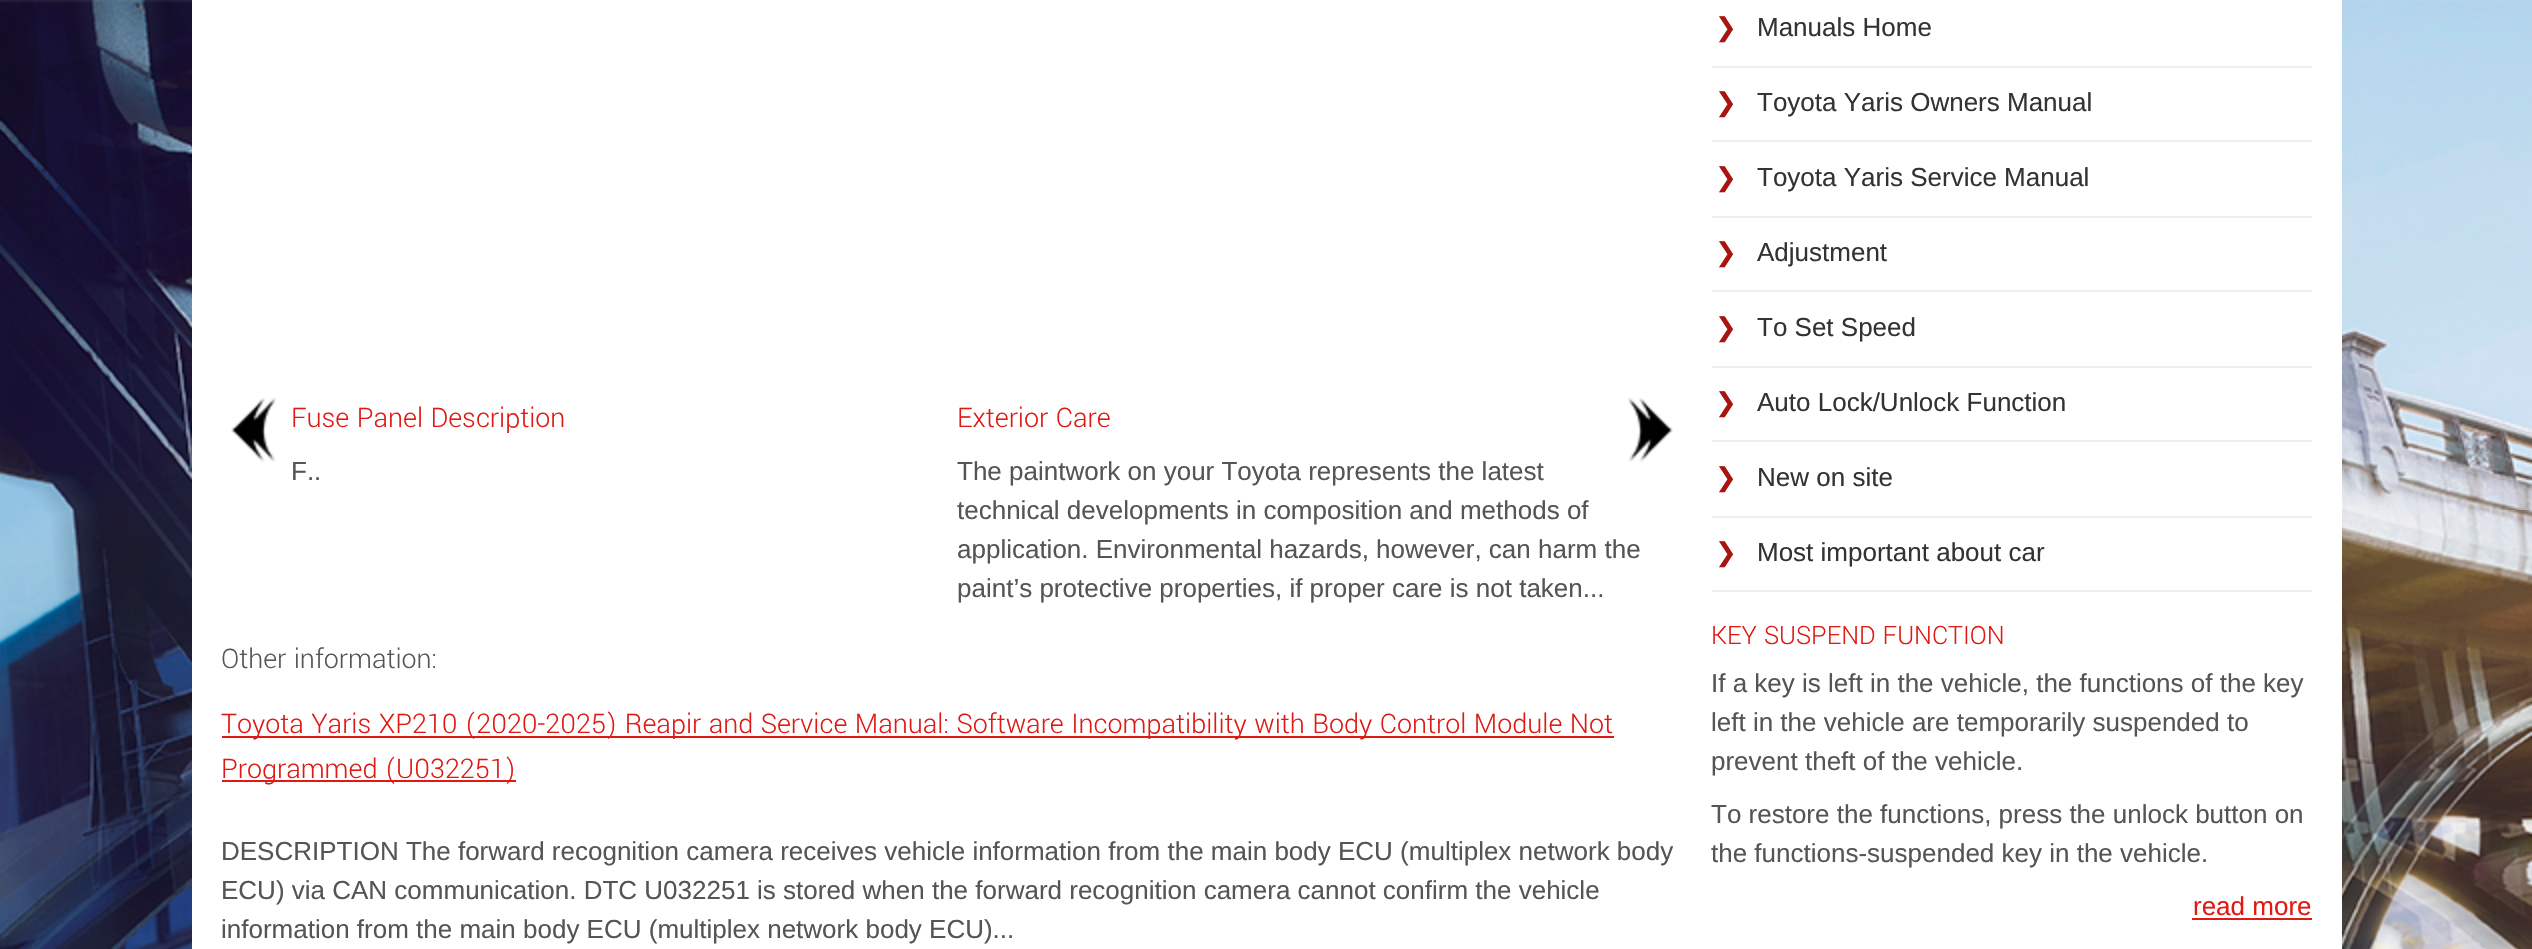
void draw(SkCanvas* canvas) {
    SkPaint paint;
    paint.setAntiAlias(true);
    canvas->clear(0xFFFFFFFF);
    canvas->drawImageRect(SkImages::DeferredFromEncodedData(SkData::MakeFromFileName("img1.png")), SkRect::MakeXYWH(0, 0, 2532, 949), SkSamplingOptions());
    paint.setColor(0xFFFFFFFF);
    canvas->drawRect(SkRect::MakeXYWH(192, 0, 2150, 949), paint);
    canvas->drawImageRect(SkImages::DeferredFromEncodedData(SkData::MakeFromFileName("img2.png")), SkRect::MakeXYWH(231, 398, 45, 64), SkSamplingOptions());
    SkFont font1(fontMgr->matchFamilyStyle("Yantramanav", SkFontStyle(300, SkFontStyle::kNormal_Width, SkFontStyle::kUpright_Slant)), 30);
    font1.setSubpixel(true);
    paint.setColor(0xFFDF1A14);
    canvas->drawString("Fuse Panel Description", 291, 427, font1, paint);
    SkFont font2(fontMgr->matchFamilyStyle("Liberation Sans", SkFontStyle::Normal()), 26);
    font2.setSubpixel(true);
    paint.setColor(0xFF555555);
    canvas->drawString("F..", 291, 480, font2, paint);
    paint.setColor(0xFFDF1A14);
    canvas->drawString("Exterior Care", 957, 427, font1, paint);
    canvas->drawImageRect(SkImages::DeferredFromEncodedData(SkData::MakeFromFileName("img3.png")), SkRect::MakeXYWH(1628, 398, 45, 64), SkSamplingOptions());
    paint.setColor(0xFF555555);
    canvas->drawString("The paintwork on your Toyota represents the latest", 957, 480, font2, paint);
    canvas->drawString("technical developments in composition and methods of", 957, 519, font2, paint);
    canvas->drawString("application. Environmental hazards, however, can harm the", 957, 558, font2, paint);
    canvas->drawString("paint’s protective properties, if proper care is not taken...", 957, 597, font2, paint);
    canvas->drawString("Other information:", 221, 668, font1, paint);
    paint.setColor(0xFFDF1A14);
    canvas->drawRect(SkRect::MakeXYWH(222, 736, 1392, 2), paint);
    canvas->drawString("Toyota Yaris XP210 (2020-2025) Reapir and Service Manual: Software Incompatibility with Body Control Module Not", 221, 733, font1, paint);
    canvas->drawRect(SkRect::MakeXYWH(222, 780, 294, 2), paint);
    canvas->drawString("Programmed (U032251)", 221, 778, font1, paint);
    paint.setColor(0xFF555555);
    canvas->drawString("DESCRIPTION The forward recognition camera receives vehicle information from the main body ECU (multiplex network body", 221, 860, font2, paint);
    canvas->drawString("ECU) via CAN communication. DTC U032251 is stored when the forward recognition camera cannot confirm the vehicle", 221, 899, font2, paint);
    canvas->drawString("information from the main body ECU (multiplex network body ECU)...", 221, 938, font2, paint);
    paint.setColor(0xFFEEEEEE);
    canvas->drawRect(SkRect::MakeXYWH(1712, 66, 600, 2), paint);
    SkFont font3(fontMgr->matchFamilyStyle("DejaVu Sans", SkFontStyle::Normal()), 26);
    font3.setSubpixel(true);
    paint.setColor(0xFFA8140F);
    canvas->drawString("❯", 1715, 36, font3, paint);
    paint.setColor(0xFF333333);
    canvas->drawString("Manuals Home", 1757, 36, font2, paint);
    paint.setColor(0xFFEEEEEE);
    canvas->drawRect(SkRect::MakeXYWH(1712, 140, 600, 2), paint);
    paint.setColor(0xFFA8140F);
    canvas->drawString("❯", 1715, 111, font3, paint);
    paint.setColor(0xFF333333);
    canvas->drawString("Toyota Yaris Owners Manual", 1757, 111, font2, paint);
    paint.setColor(0xFFEEEEEE);
    canvas->drawRect(SkRect::MakeXYWH(1712, 216, 600, 2), paint);
    paint.setColor(0xFFA8140F);
    canvas->drawString("❯", 1715, 186, font3, paint);
    paint.setColor(0xFF333333);
    canvas->drawString("Toyota Yaris Service Manual", 1757, 186, font2, paint);
    paint.setColor(0xFFEEEEEE);
    canvas->drawRect(SkRect::MakeXYWH(1712, 290, 600, 2), paint);
    paint.setColor(0xFFA8140F);
    canvas->drawString("❯", 1715, 261, font3, paint);
    paint.setColor(0xFF333333);
    canvas->drawString("Adjustment", 1757, 261, font2, paint);
    paint.setColor(0xFFEEEEEE);
    canvas->drawRect(SkRect::MakeXYWH(1712, 366, 600, 2), paint);
    paint.setColor(0xFFA8140F);
    canvas->drawString("❯", 1715, 336, font3, paint);
    paint.setColor(0xFF333333);
    canvas->drawString("To Set Speed", 1757, 336, font2, paint);
    paint.setColor(0xFFEEEEEE);
    canvas->drawRect(SkRect::MakeXYWH(1712, 440, 600, 2), paint);
    paint.setColor(0xFFA8140F);
    canvas->drawString("❯", 1715, 411, font3, paint);
    paint.setColor(0xFF333333);
    canvas->drawString("Auto Lock/Unlock Function", 1757, 411, font2, paint);
    paint.setColor(0xFFEEEEEE);
    canvas->drawRect(SkRect::MakeXYWH(1712, 516, 600, 2), paint);
    paint.setColor(0xFFA8140F);
    canvas->drawString("❯", 1715, 486, font3, paint);
    paint.setColor(0xFF333333);
    canvas->drawString("New on site", 1757, 486, font2, paint);
    paint.setColor(0xFFEEEEEE);
    canvas->drawRect(SkRect::MakeXYWH(1712, 590, 600, 2), paint);
    paint.setColor(0xFFA8140F);
    canvas->drawString("❯", 1715, 561, font3, paint);
    paint.setColor(0xFF333333);
    canvas->drawString("Most important about car", 1757, 561, font2, paint);
    SkFont font4(fontMgr->matchFamilyStyle("Yantramanav", SkFontStyle(300, SkFontStyle::kNormal_Width, SkFontStyle::kUpright_Slant)), 28);
    font4.setSubpixel(true);
    paint.setColor(0xFFDF1A14);
    canvas->drawString("KEY SUSPEND FUNCTION", 1711, 644, font4, paint);
    paint.setColor(0xFF555555);
    canvas->drawString("If a key is left in the vehicle, the functions of the key", 1711, 692, font2, paint);
    canvas->drawString("left in the vehicle are temporarily suspended to", 1711, 731, font2, paint);
    canvas->drawString("prevent theft of the vehicle.", 1711, 770, font2, paint);
    canvas->drawString("To restore the functions, press the unlock button on", 1711, 823, font2, paint);
    canvas->drawString("the functions-suspended key in the vehicle.", 1711, 862, font2, paint);
    paint.setColor(0xFFDF1A14);
    canvas->drawString("read more", 2193, 915, font2, paint);
    canvas->drawRect(SkRect::MakeXYWH(2192, 918, 120, 2), paint);
}
